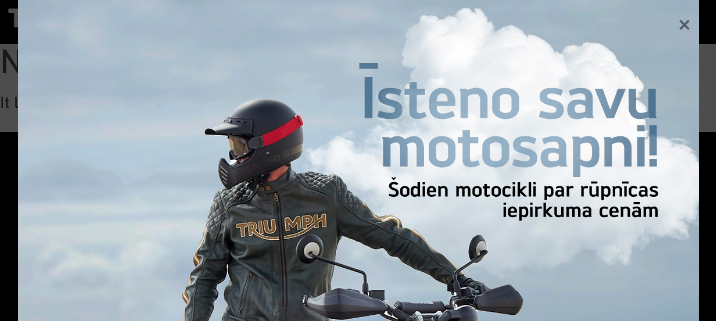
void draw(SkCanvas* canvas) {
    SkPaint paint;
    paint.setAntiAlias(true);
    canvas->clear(0xFF4D4D4D);
    paint.setColor(0xFF000000);
    canvas->drawRect(SkRect::MakeXYWH(0, 0, 716, 44), paint);
    canvas->drawImageRect(SkImages::DeferredFromEncodedData(SkData::MakeFromFileName("img1.png")), SkRect::MakeXYWH(8, 8, 10, 20), SkSamplingOptions());
    SkFont font1(fontMgr->matchFamilyStyle("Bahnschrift", SkFontStyle::Normal()), 33);
    font1.setSubpixel(true);
    paint.setColor(0xFF181818);
    canvas->drawString("N", 0, 73, font1, paint);
    SkFont font2(fontMgr->matchFamilyStyle("Bahnschrift", SkFontStyle::Normal()), 16);
    font2.setSubpixel(true);
    canvas->drawString("It l", 0, 108, font2, paint);
    paint.setColor(0xFF000000);
    canvas->drawRect(SkRect::MakeXYWH(0, 132, 716, 189), paint);
    canvas->drawImageRect(SkImages::DeferredFromEncodedData(SkData::MakeFromFileName("img2.png")), SkRect::MakeXYWH(18, 0, 681, 321), SkSamplingOptions());
    canvas->drawImageRect(SkImages::DeferredFromEncodedData(SkData::MakeFromFileName("img3.png")), SkRect::MakeXYWH(679, 19, 11, 11), SkSamplingOptions());
}
